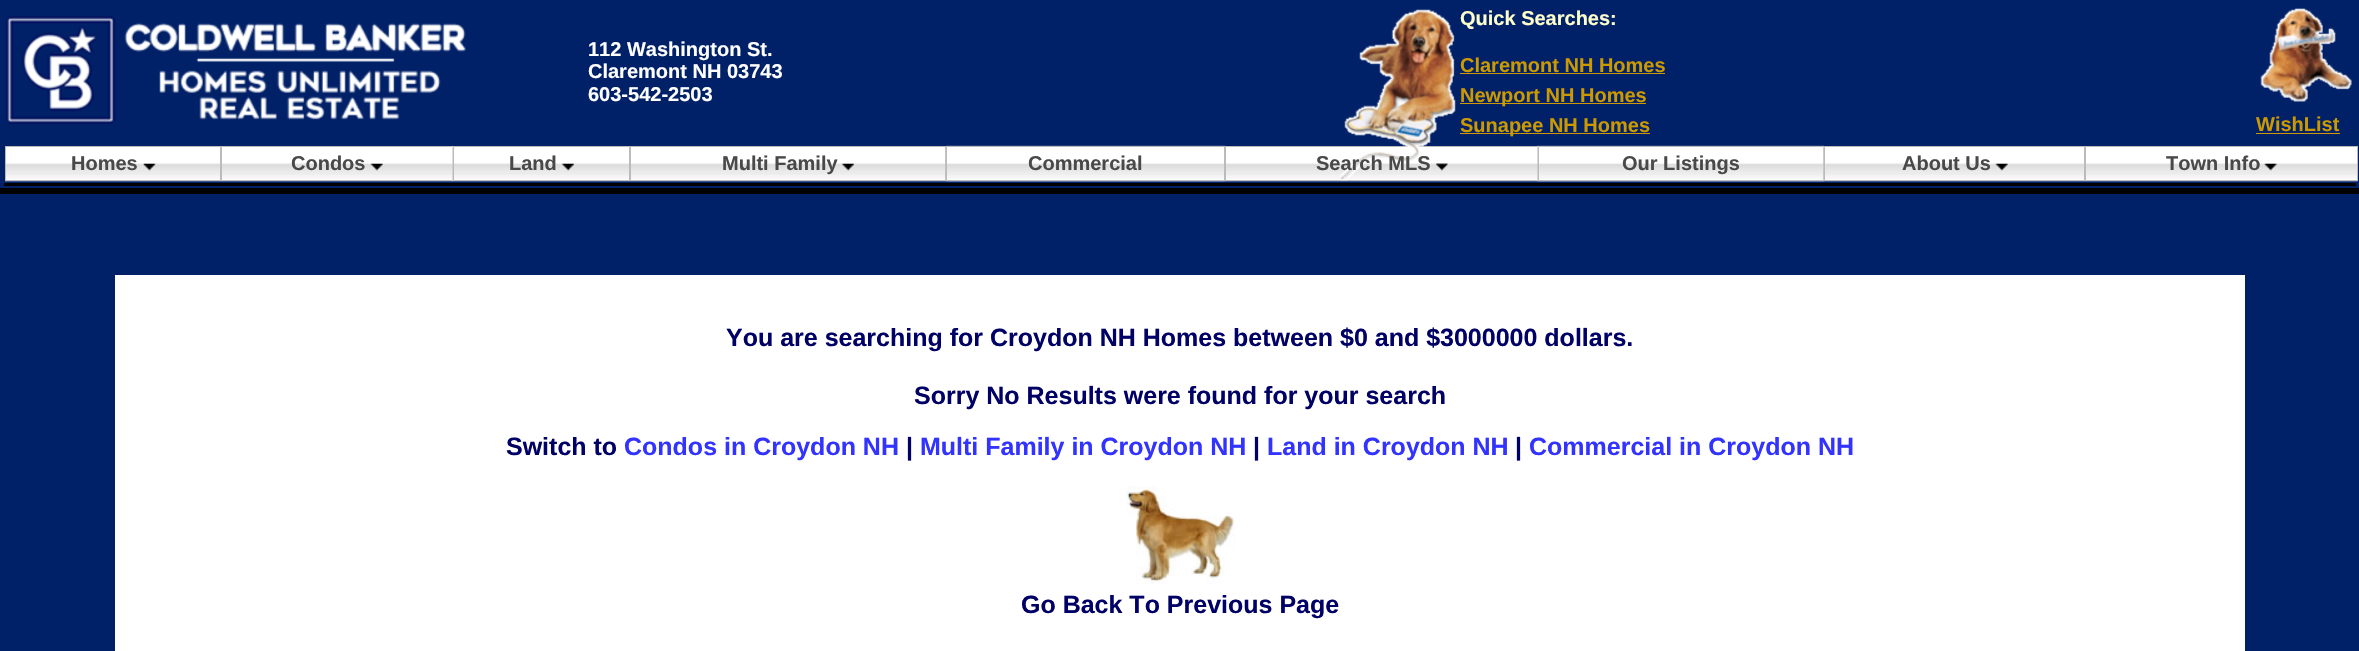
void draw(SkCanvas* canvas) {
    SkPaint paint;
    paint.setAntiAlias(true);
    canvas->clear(0xFF002068);
    paint.setColor(0xFF000000);
    canvas->drawRect(SkRect::MakeXYWH(0, 188, 2359, 6), paint);
    canvas->drawImageRect(SkImages::DeferredFromEncodedData(SkData::MakeFromFileName("img1.png")), SkRect::MakeXYWH(6, 16, 460, 108), SkSamplingOptions());
    SkFont font1(fontMgr->matchFamilyStyle("Liberation Sans", SkFontStyle::Bold()), 20);
    font1.setSubpixel(true);
    paint.setColor(0xFFFFFFFF);
    canvas->drawString("112 Washington St.", 588, 56, font1, paint);
    canvas->drawString("Claremont NH 03743", 588, 78, font1, paint);
    canvas->drawString("603-542-2503", 588, 101, font1, paint);
    canvas->drawImageRect(SkImages::DeferredFromEncodedData(SkData::MakeFromFileName("img10.png")), SkRect::MakeXYWH(630, 147, 317, 35), SkSamplingOptions());
    paint.setStyle(SkPaint::kStroke_Style);
    paint.setStrokeWidth(1);
    paint.setColor(0xFFBBBBBB);
    canvas->drawRect(SkRect::MakeXYWH(630.5f, 146.5f, 315, 34), paint);
    canvas->drawImageRect(SkImages::DeferredFromEncodedData(SkData::MakeFromFileName("img12.png")), SkRect::MakeXYWH(945, 145, 281, 37), SkSamplingOptions());
    canvas->drawImageRect(SkImages::DeferredFromEncodedData(SkData::MakeFromFileName("img13.png")), SkRect::MakeXYWH(1225, 147, 313, 35), SkSamplingOptions());
    canvas->drawRect(SkRect::MakeXYWH(1225.5f, 146.5f, 312, 34), paint);
    canvas->drawImageRect(SkImages::DeferredFromEncodedData(SkData::MakeFromFileName("img2.png")), SkRect::MakeXYWH(1340, 9, 116, 172), SkSamplingOptions());
    paint.setStyle(SkPaint::kFill_Style);
    paint.setColor(0xFFFFFFCC);
    canvas->drawString("Quick Searches:", 1460, 25, font1, paint);
    paint.setColor(0xFFCC9900);
    canvas->drawString("Claremont NH Homes", 1460, 72, font1, paint);
    canvas->drawRect(SkRect::MakeXYWH(1460, 73, 205, 1), paint);
    canvas->drawRect(SkRect::MakeXYWH(1460, 103, 186, 1), paint);
    canvas->drawString("Newport NH Homes", 1460, 102, font1, paint);
    canvas->drawRect(SkRect::MakeXYWH(1460, 133, 190, 1), paint);
    canvas->drawString("Sunapee NH Homes", 1460, 132, font1, paint);
    canvas->drawImageRect(SkImages::DeferredFromEncodedData(SkData::MakeFromFileName("img3.png")), SkRect::MakeXYWH(2260, 8, 92, 94), SkSamplingOptions());
    canvas->drawString("WishList", 2256, 131, font1, paint);
    canvas->drawRect(SkRect::MakeXYWH(2256, 133, 84, 1), paint);
    canvas->drawImageRect(SkImages::DeferredFromEncodedData(SkData::MakeFromFileName("img4.png")), SkRect::MakeXYWH(5, 147, 217, 35), SkSamplingOptions());
    paint.setStyle(SkPaint::kStroke_Style);
    paint.setColor(0xFFBBBBBB);
    canvas->drawRect(SkRect::MakeXYWH(5.5f, 146.5f, 215, 34), paint);
    paint.setStyle(SkPaint::kFill_Style);
    paint.setColor(0xFF494949);
    canvas->drawString("Homes", 71, 170, font1, paint);
    canvas->drawImageRect(SkImages::DeferredFromEncodedData(SkData::MakeFromFileName("img5.png")), SkRect::MakeXYWH(143, 163, 13, 8), SkSamplingOptions());
    canvas->drawImageRect(SkImages::DeferredFromEncodedData(SkData::MakeFromFileName("img6.png")), SkRect::MakeXYWH(221, 147, 232, 35), SkSamplingOptions());
    paint.setStyle(SkPaint::kStroke_Style);
    paint.setColor(0xFFBBBBBB);
    canvas->drawRect(SkRect::MakeXYWH(221.5f, 146.5f, 231, 34), paint);
    paint.setStyle(SkPaint::kFill_Style);
    paint.setColor(0xFF494949);
    canvas->drawString("Condos", 291, 170, font1, paint);
    canvas->drawImageRect(SkImages::DeferredFromEncodedData(SkData::MakeFromFileName("img7.png")), SkRect::MakeXYWH(370, 163, 13, 8), SkSamplingOptions());
    canvas->drawImageRect(SkImages::DeferredFromEncodedData(SkData::MakeFromFileName("img8.png")), SkRect::MakeXYWH(452, 146, 178, 36), SkSamplingOptions());
    paint.setStyle(SkPaint::kStroke_Style);
    paint.setColor(0xFFBBBBBB);
    canvas->drawRect(SkRect::MakeXYWH(453.5f, 146.5f, 176, 34), paint);
    paint.setStyle(SkPaint::kFill_Style);
    paint.setColor(0xFF494949);
    canvas->drawString("Land", 509, 170, font1, paint);
    canvas->drawImageRect(SkImages::DeferredFromEncodedData(SkData::MakeFromFileName("img9.png")), SkRect::MakeXYWH(561, 163, 13, 8), SkSamplingOptions());
    canvas->drawString("Multi Family", 722, 170, font1, paint);
    canvas->drawImageRect(SkImages::DeferredFromEncodedData(SkData::MakeFromFileName("img11.png")), SkRect::MakeXYWH(841, 163, 13, 8), SkSamplingOptions());
    paint.setStyle(SkPaint::kStroke_Style);
    paint.setColor(0xFFBBBBBB);
    canvas->drawRect(SkRect::MakeXYWH(946.5f, 146.5f, 278, 34), paint);
    paint.setStyle(SkPaint::kFill_Style);
    paint.setColor(0xFF494949);
    canvas->drawString("Commercial", 1028, 170, font1, paint);
    canvas->drawString("Search MLS", 1316, 170, font1, paint);
    canvas->drawImageRect(SkImages::DeferredFromEncodedData(SkData::MakeFromFileName("img14.png")), SkRect::MakeXYWH(1436, 163, 12, 8), SkSamplingOptions());
    canvas->drawImageRect(SkImages::DeferredFromEncodedData(SkData::MakeFromFileName("img15.png")), SkRect::MakeXYWH(1536, 145, 288, 37), SkSamplingOptions());
    paint.setStyle(SkPaint::kStroke_Style);
    paint.setColor(0xFFBBBBBB);
    canvas->drawRect(SkRect::MakeXYWH(1538.5f, 146.5f, 285, 34), paint);
    paint.setStyle(SkPaint::kFill_Style);
    paint.setColor(0xFF494949);
    canvas->drawString("Our Listings", 1622, 170, font1, paint);
    canvas->drawImageRect(SkImages::DeferredFromEncodedData(SkData::MakeFromFileName("img16.png")), SkRect::MakeXYWH(1823, 146, 262, 36), SkSamplingOptions());
    paint.setStyle(SkPaint::kStroke_Style);
    paint.setColor(0xFFBBBBBB);
    canvas->drawRect(SkRect::MakeXYWH(1824.5f, 146.5f, 260, 34), paint);
    paint.setStyle(SkPaint::kFill_Style);
    paint.setColor(0xFF494949);
    canvas->drawString("About Us", 1902, 170, font1, paint);
    canvas->drawImageRect(SkImages::DeferredFromEncodedData(SkData::MakeFromFileName("img17.png")), SkRect::MakeXYWH(1995, 163, 13, 8), SkSamplingOptions());
    canvas->drawImageRect(SkImages::DeferredFromEncodedData(SkData::MakeFromFileName("img18.png")), SkRect::MakeXYWH(2085, 147, 273, 35), SkSamplingOptions());
    paint.setStyle(SkPaint::kStroke_Style);
    paint.setColor(0xFFBBBBBB);
    canvas->drawRect(SkRect::MakeXYWH(2085.5f, 146.5f, 272, 34), paint);
    paint.setStyle(SkPaint::kFill_Style);
    paint.setColor(0xFF494949);
    canvas->drawString("Town Info", 2166, 170, font1, paint);
    canvas->drawImageRect(SkImages::DeferredFromEncodedData(SkData::MakeFromFileName("img19.png")), SkRect::MakeXYWH(2264, 163, 13, 8), SkSamplingOptions());
    paint.setColor(0xFF000000);
    canvas->drawRect(SkRect::MakeXYWH(4, 183, 2352, 3), paint);
    paint.setColor(0xFFFFFFFF);
    canvas->drawRect(SkRect::MakeXYWH(115, 275, 2130, 376), paint);
    SkFont font2(fontMgr->matchFamilyStyle("Liberation Sans", SkFontStyle::Bold()), 25);
    font2.setSubpixel(true);
    paint.setColor(0xFF000066);
    canvas->drawString("You are searching for Croydon NH Homes between $0 and $3000000 dollars.", 726, 346, font2, paint);
    canvas->drawString("Sorry No Results were found for your search", 914, 404, font2, paint);
    canvas->drawString("Switch to", 506, 455, font2, paint);
    paint.setColor(0xFF3333FF);
    canvas->drawString("Condos in Croydon NH", 624, 455, font2, paint);
    paint.setColor(0xFF000066);
    canvas->drawString("|", 906, 455, font2, paint);
    paint.setColor(0xFF3333FF);
    canvas->drawString("Multi Family in Croydon NH", 920, 455, font2, paint);
    paint.setColor(0xFF000066);
    canvas->drawString("|", 1253, 455, font2, paint);
    paint.setColor(0xFF3333FF);
    canvas->drawString("Land in Croydon NH", 1267, 455, font2, paint);
    paint.setColor(0xFF000066);
    canvas->drawString("|", 1515, 455, font2, paint);
    paint.setColor(0xFF3333FF);
    canvas->drawString("Commercial in Croydon NH", 1529, 455, font2, paint);
    canvas->drawImageRect(SkImages::DeferredFromEncodedData(SkData::MakeFromFileName("img20.png")), SkRect::MakeXYWH(1126, 486, 109, 98), SkSamplingOptions());
    paint.setColor(0xFF000066);
    canvas->drawString("Go Back To Previous Page", 1021, 613, font2, paint);
}
